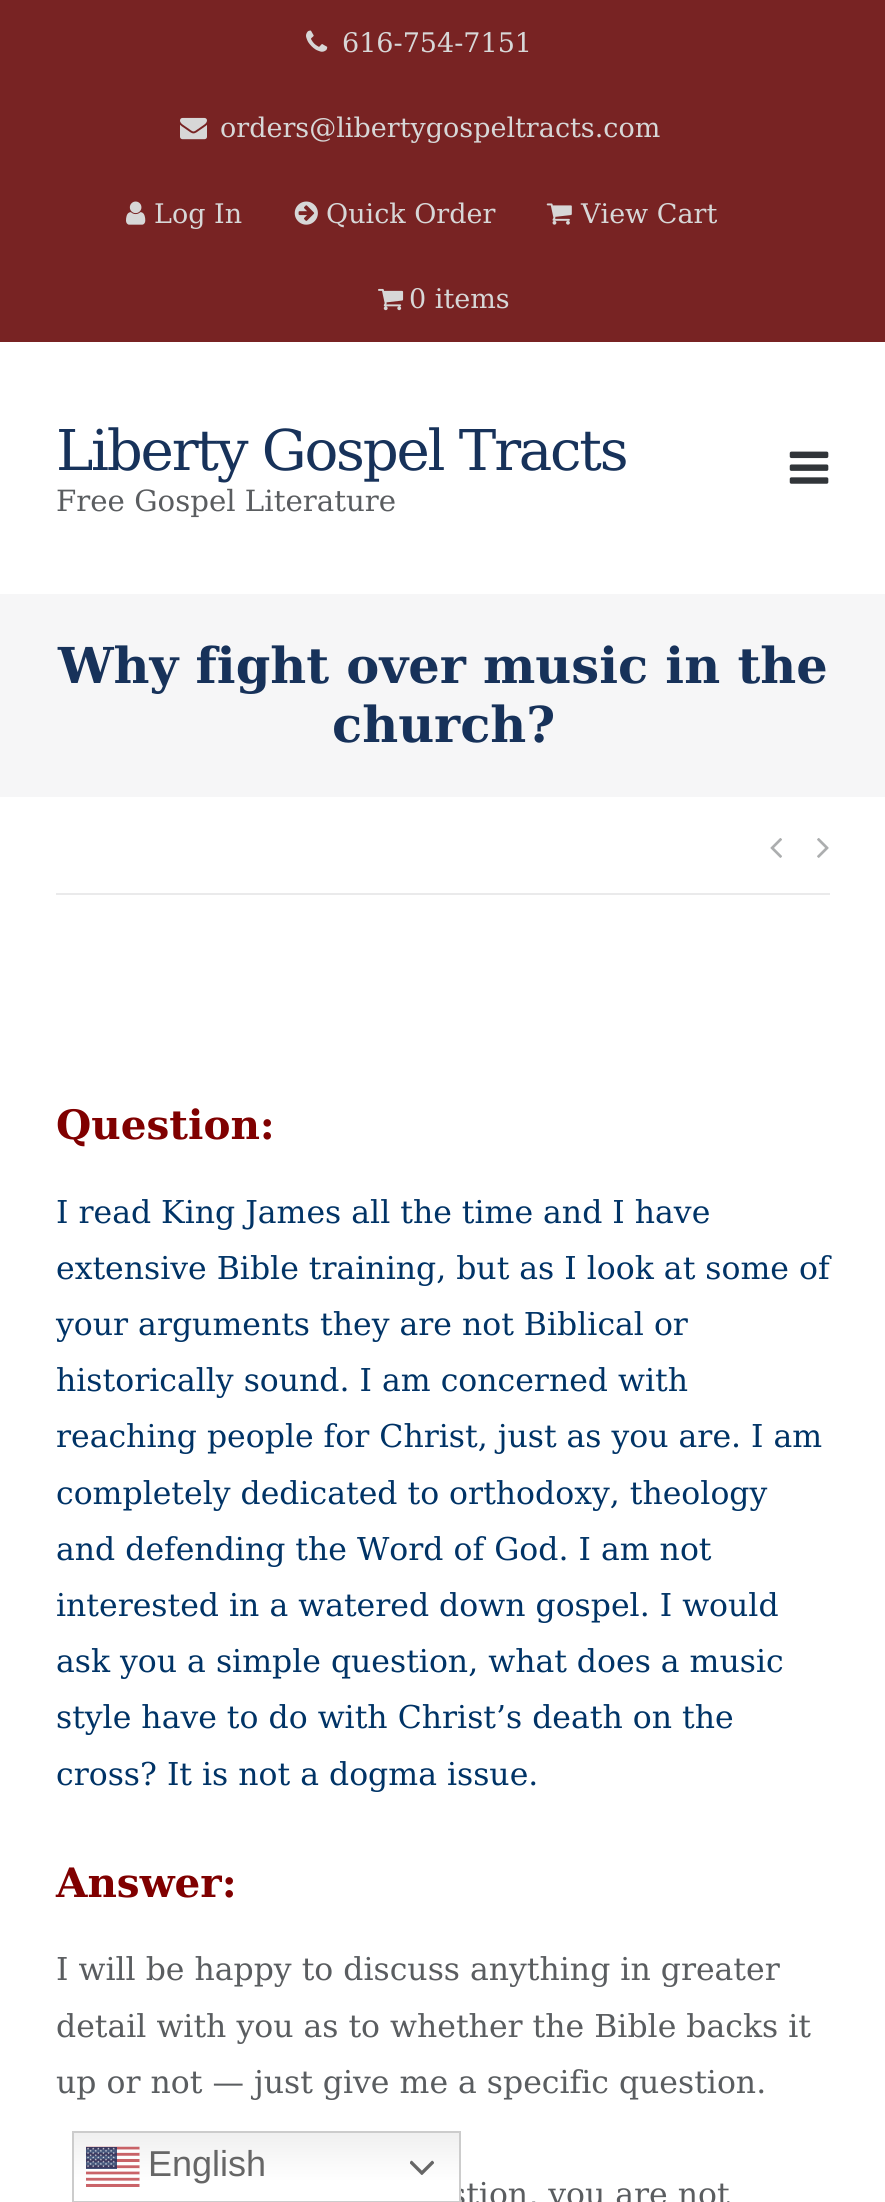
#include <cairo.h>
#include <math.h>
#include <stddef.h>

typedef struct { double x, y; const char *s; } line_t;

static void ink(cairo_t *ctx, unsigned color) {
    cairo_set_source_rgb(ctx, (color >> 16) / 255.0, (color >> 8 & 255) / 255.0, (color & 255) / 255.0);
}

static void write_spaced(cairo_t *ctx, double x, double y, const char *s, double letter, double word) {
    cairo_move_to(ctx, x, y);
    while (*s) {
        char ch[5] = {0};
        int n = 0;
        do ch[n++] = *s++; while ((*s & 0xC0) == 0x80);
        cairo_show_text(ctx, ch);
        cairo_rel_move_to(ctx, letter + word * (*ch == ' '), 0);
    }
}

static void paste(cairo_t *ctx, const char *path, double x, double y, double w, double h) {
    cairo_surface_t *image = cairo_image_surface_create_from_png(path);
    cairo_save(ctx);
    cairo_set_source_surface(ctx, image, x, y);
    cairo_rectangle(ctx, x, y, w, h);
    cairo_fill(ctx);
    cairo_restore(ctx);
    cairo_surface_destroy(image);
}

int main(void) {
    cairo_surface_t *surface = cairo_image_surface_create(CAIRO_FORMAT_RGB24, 885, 2202);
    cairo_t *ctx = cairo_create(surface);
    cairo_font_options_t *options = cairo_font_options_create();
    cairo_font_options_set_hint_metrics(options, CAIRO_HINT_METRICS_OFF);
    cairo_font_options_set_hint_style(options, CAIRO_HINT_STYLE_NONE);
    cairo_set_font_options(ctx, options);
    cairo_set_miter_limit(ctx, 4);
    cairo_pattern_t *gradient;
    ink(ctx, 0xFFFFFF);
    cairo_paint(ctx);
    ink(ctx, 0x782323);
    cairo_rectangle(ctx, 0, 0, 885, 342);
    cairo_fill(ctx);
    paste(ctx, "media/1.png", 306, 30, 22, 22);
    cairo_select_font_face(ctx, "DejaVu Serif", CAIRO_FONT_SLANT_NORMAL, CAIRO_FONT_WEIGHT_NORMAL);
    cairo_set_font_size(ctx, 27);
    ink(ctx, 0xD7D7D7);
    cairo_move_to(ctx, 342, 52);
    cairo_show_text(ctx, "616-754-7151");
    paste(ctx, "media/2.png", 180, 117, 27, 23);
    cairo_move_to(ctx, 220, 137);
    cairo_show_text(ctx, "orders@libertygospeltracts.com");
    paste(ctx, "media/3.png", 126, 201, 20, 24);
    cairo_move_to(ctx, 154, 223);
    cairo_show_text(ctx, "Log In");
    paste(ctx, "media/4.png", 294, 201, 24, 24);
    cairo_move_to(ctx, 326, 223);
    cairo_show_text(ctx, "Quick Order");
    paste(ctx, "media/5.png", 546, 203, 26, 22);
    cairo_move_to(ctx, 581, 223);
    cairo_show_text(ctx, "View Cart");
    paste(ctx, "media/6.png", 378, 288, 26, 23);
    cairo_move_to(ctx, 409, 308);
    cairo_show_text(ctx, "0 items");
    cairo_set_font_size(ctx, 56.25);
    ink(ctx, 0x17325A);
    write_spaced(ctx, 56, 470, "Liberty Gospel Tracts", -2.25, 0);
    cairo_set_font_size(ctx, 29.25);
    ink(ctx, 0x5A5D60);
    cairo_move_to(ctx, 56, 511);
    cairo_show_text(ctx, "Free Gospel Literature");
    paste(ctx, "media/7.png", 789, 451, 40, 33);
    ink(ctx, 0xF6F6F7);
    cairo_rectangle(ctx, 0, 594, 885, 203);
    cairo_fill(ctx);
    cairo_select_font_face(ctx, "DejaVu Serif", CAIRO_FONT_SLANT_NORMAL, CAIRO_FONT_WEIGHT_BOLD);
    cairo_set_font_size(ctx, 49.5);
    ink(ctx, 0x17325A);
    cairo_move_to(ctx, 58, 683);
    cairo_show_text(ctx, "Why fight over music in the");
    cairo_move_to(ctx, 332, 742);
    cairo_show_text(ctx, "church?");
    ink(ctx, 0xEAEAEB);
    cairo_rectangle(ctx, 56, 893, 774, 2);
    cairo_fill(ctx);
    paste(ctx, "media/8.png", 770, 838, 12, 20);
    paste(ctx, "media/9.png", 817, 838, 12, 20);
    cairo_set_font_size(ctx, 40.5);
    ink(ctx, 0x800000);
    cairo_move_to(ctx, 56, 1139);
    cairo_show_text(ctx, "Question:");
    cairo_select_font_face(ctx, "DejaVu Serif", CAIRO_FONT_SLANT_NORMAL, CAIRO_FONT_WEIGHT_NORMAL);
    cairo_set_font_size(ctx, 31.5);
    ink(ctx, 0x003366);
    {
        static const line_t items[] = {
            {56, 1223, "I read King James all the time and I have"},
            {56, 1279, "extensive Bible training, but as I look at some of"},
            {56, 1335, "your arguments they are not Biblical or"},
            {56, 1391, "historically sound. I am concerned with"},
            {56, 1447, "reaching people for Christ, just as you are. I am"},
            {56, 1504, "completely dedicated to orthodoxy, theology"},
            {56, 1560, "and defending the Word of God. I am not"},
            {56, 1616, "interested in a watered down gospel. I would"},
            {56, 1672, "ask you a simple question, what does a music"},
            {56, 1728, "style have to do with Christ’s death on the"},
            {56, 1785, "cross? It is not a dogma issue."},
        };
        for (size_t i = 0; i < sizeof items / sizeof *items; i++) {
            cairo_move_to(ctx, items[i].x, items[i].y);
            cairo_show_text(ctx, items[i].s);
        }
    }
    cairo_select_font_face(ctx, "DejaVu Serif", CAIRO_FONT_SLANT_NORMAL, CAIRO_FONT_WEIGHT_BOLD);
    cairo_set_font_size(ctx, 40.5);
    ink(ctx, 0x800000);
    cairo_move_to(ctx, 56, 1897);
    cairo_show_text(ctx, "Answer:");
    cairo_select_font_face(ctx, "DejaVu Serif", CAIRO_FONT_SLANT_NORMAL, CAIRO_FONT_WEIGHT_NORMAL);
    cairo_set_font_size(ctx, 31.5);
    ink(ctx, 0x5A5D60);
    {
        static const line_t items[] = {
            {56, 1980, "I will be happy to discuss anything in greater"},
            {56, 2037, "detail with you as to whether the Bible backs it"},
            {56, 2093, "up or not — just give me a specific question."},
            {450, 2205, "stion, you are not"},
        };
        for (size_t i = 0; i < sizeof items / sizeof *items; i++) {
            cairo_move_to(ctx, items[i].x, items[i].y);
            cairo_show_text(ctx, items[i].s);
        }
    }
    gradient = cairo_pattern_create_linear(267, 2131, 267, 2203);
    cairo_pattern_add_color_stop_rgba(gradient, 0, 0.937, 0.937, 0.937, 1);
    cairo_pattern_add_color_stop_rgba(gradient, 0.7, 1, 1, 1, 1);
    cairo_set_source(ctx, gradient);
    cairo_pattern_destroy(gradient);
    cairo_rectangle(ctx, 74, 2133, 385, 68);
    cairo_fill(ctx);
    cairo_rectangle(ctx, 73, 2132, 387, 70);
    ink(ctx, 0xCCCCCC);
    cairo_stroke(ctx);
    paste(ctx, "media/10.png", 86, 2146, 54, 41);
    cairo_select_font_face(ctx, "Liberation Sans", CAIRO_FONT_SLANT_NORMAL, CAIRO_FONT_WEIGHT_NORMAL);
    cairo_set_font_size(ctx, 36);
    ink(ctx, 0x666666);
    cairo_move_to(ctx, 148, 2176);
    cairo_show_text(ctx, "English");
    paste(ctx, "media/11.png", 410, 2160, 24, 15);
    cairo_surface_write_to_png(surface, "image.png");
    cairo_font_options_destroy(options);
    cairo_destroy(ctx);
    cairo_surface_destroy(surface);
    return 0;
}
